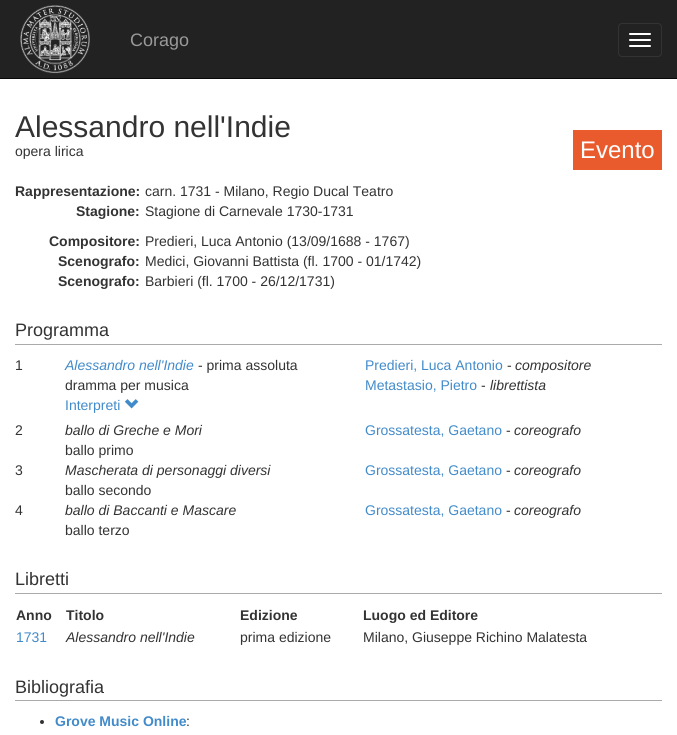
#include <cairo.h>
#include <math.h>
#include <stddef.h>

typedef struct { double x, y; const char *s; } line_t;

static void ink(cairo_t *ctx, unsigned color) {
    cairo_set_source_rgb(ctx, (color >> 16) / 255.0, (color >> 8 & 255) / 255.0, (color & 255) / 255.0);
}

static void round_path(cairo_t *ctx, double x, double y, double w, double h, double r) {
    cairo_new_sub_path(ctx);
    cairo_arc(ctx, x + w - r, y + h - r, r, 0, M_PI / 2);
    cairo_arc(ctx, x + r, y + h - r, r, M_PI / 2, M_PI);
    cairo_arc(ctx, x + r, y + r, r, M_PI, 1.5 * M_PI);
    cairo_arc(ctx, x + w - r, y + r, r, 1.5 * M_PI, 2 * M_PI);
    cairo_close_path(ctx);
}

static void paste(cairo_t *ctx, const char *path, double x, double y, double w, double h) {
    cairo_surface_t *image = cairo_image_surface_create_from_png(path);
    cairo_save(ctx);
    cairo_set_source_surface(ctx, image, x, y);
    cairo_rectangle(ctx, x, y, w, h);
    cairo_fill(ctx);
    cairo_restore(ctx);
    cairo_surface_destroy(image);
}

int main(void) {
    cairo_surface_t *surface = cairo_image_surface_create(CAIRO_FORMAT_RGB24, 677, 735);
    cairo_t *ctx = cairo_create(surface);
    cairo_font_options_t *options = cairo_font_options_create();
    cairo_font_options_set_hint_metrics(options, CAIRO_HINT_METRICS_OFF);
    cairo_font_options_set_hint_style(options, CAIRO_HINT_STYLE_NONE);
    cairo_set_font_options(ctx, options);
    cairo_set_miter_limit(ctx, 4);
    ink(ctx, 0xFFFFFF);
    cairo_paint(ctx);
    ink(ctx, 0x222222);
    cairo_rectangle(ctx, 0, 0, 677, 78);
    cairo_fill(ctx);
    ink(ctx, 0x080808);
    cairo_rectangle(ctx, 0, 78, 677, 1);
    cairo_fill(ctx);
    paste(ctx, "media/1.png", 20, 5, 70, 69);
    cairo_select_font_face(ctx, "Liberation Sans", CAIRO_FONT_SLANT_NORMAL, CAIRO_FONT_WEIGHT_NORMAL);
    cairo_set_font_size(ctx, 18);
    ink(ctx, 0x999999);
    cairo_move_to(ctx, 130, 46);
    cairo_show_text(ctx, "Corago");
    round_path(ctx, 618.5, 23.5, 43, 33, 3.5);
    ink(ctx, 0x333333);
    cairo_set_line_width(ctx, 1);
    cairo_stroke(ctx);
    ink(ctx, 0xFFFFFF);
    round_path(ctx, 629, 33, 22, 2, 1);
    cairo_fill(ctx);
    round_path(ctx, 629, 39, 22, 2, 1);
    cairo_fill(ctx);
    round_path(ctx, 629, 45, 22, 2, 1);
    cairo_fill(ctx);
    cairo_set_font_size(ctx, 30);
    ink(ctx, 0x333333);
    cairo_move_to(ctx, 15, 137);
    cairo_show_text(ctx, "Alessandro nell'Indie");
    cairo_set_font_size(ctx, 14);
    cairo_move_to(ctx, 15, 156);
    cairo_show_text(ctx, "opera lirica");
    ink(ctx, 0xE95B2D);
    cairo_rectangle(ctx, 573, 130, 89, 40);
    cairo_fill(ctx);
    cairo_set_font_size(ctx, 24);
    ink(ctx, 0xFFFFFF);
    cairo_move_to(ctx, 580, 158);
    cairo_show_text(ctx, "Evento");
    cairo_select_font_face(ctx, "Liberation Sans", CAIRO_FONT_SLANT_NORMAL, CAIRO_FONT_WEIGHT_BOLD);
    cairo_set_font_size(ctx, 14);
    ink(ctx, 0x333333);
    cairo_move_to(ctx, 15, 196);
    cairo_show_text(ctx, "Rappresentazione:");
    cairo_select_font_face(ctx, "Liberation Sans", CAIRO_FONT_SLANT_NORMAL, CAIRO_FONT_WEIGHT_NORMAL);
    cairo_move_to(ctx, 145, 196);
    cairo_show_text(ctx, "carn. 1731 - Milano, Regio Ducal Teatro");
    cairo_select_font_face(ctx, "Liberation Sans", CAIRO_FONT_SLANT_NORMAL, CAIRO_FONT_WEIGHT_BOLD);
    cairo_move_to(ctx, 76, 216);
    cairo_show_text(ctx, "Stagione:");
    cairo_select_font_face(ctx, "Liberation Sans", CAIRO_FONT_SLANT_NORMAL, CAIRO_FONT_WEIGHT_NORMAL);
    cairo_move_to(ctx, 145, 216);
    cairo_show_text(ctx, "Stagione di Carnevale 1730-1731");
    cairo_select_font_face(ctx, "Liberation Sans", CAIRO_FONT_SLANT_NORMAL, CAIRO_FONT_WEIGHT_BOLD);
    cairo_move_to(ctx, 49, 246);
    cairo_show_text(ctx, "Compositore:");
    cairo_select_font_face(ctx, "Liberation Sans", CAIRO_FONT_SLANT_NORMAL, CAIRO_FONT_WEIGHT_NORMAL);
    cairo_move_to(ctx, 145, 246);
    cairo_show_text(ctx, "Predieri, Luca Antonio (13/09/1688 - 1767)");
    cairo_select_font_face(ctx, "Liberation Sans", CAIRO_FONT_SLANT_NORMAL, CAIRO_FONT_WEIGHT_BOLD);
    cairo_move_to(ctx, 58, 266);
    cairo_show_text(ctx, "Scenografo:");
    cairo_select_font_face(ctx, "Liberation Sans", CAIRO_FONT_SLANT_NORMAL, CAIRO_FONT_WEIGHT_NORMAL);
    cairo_move_to(ctx, 145, 266);
    cairo_show_text(ctx, "Medici, Giovanni Battista (fl. 1700 - 01/1742)");
    cairo_select_font_face(ctx, "Liberation Sans", CAIRO_FONT_SLANT_NORMAL, CAIRO_FONT_WEIGHT_BOLD);
    cairo_move_to(ctx, 58, 286);
    cairo_show_text(ctx, "Scenografo:");
    cairo_select_font_face(ctx, "Liberation Sans", CAIRO_FONT_SLANT_NORMAL, CAIRO_FONT_WEIGHT_NORMAL);
    cairo_move_to(ctx, 145, 286);
    cairo_show_text(ctx, "Barbieri (fl. 1700 - 26/12/1731)");
    ink(ctx, 0xAAAAAA);
    cairo_rectangle(ctx, 15, 344, 647, 1);
    cairo_fill(ctx);
    cairo_set_font_size(ctx, 18);
    ink(ctx, 0x333333);
    cairo_move_to(ctx, 15, 336);
    cairo_show_text(ctx, "Programma");
    cairo_set_font_size(ctx, 14);
    cairo_move_to(ctx, 15, 370);
    cairo_show_text(ctx, "1");
    cairo_select_font_face(ctx, "Liberation Sans", CAIRO_FONT_SLANT_ITALIC, CAIRO_FONT_WEIGHT_NORMAL);
    ink(ctx, 0x428BCA);
    cairo_move_to(ctx, 65, 370);
    cairo_show_text(ctx, "Alessandro nell'Indie");
    cairo_select_font_face(ctx, "Liberation Sans", CAIRO_FONT_SLANT_NORMAL, CAIRO_FONT_WEIGHT_NORMAL);
    ink(ctx, 0x333333);
    cairo_move_to(ctx, 198, 370);
    cairo_show_text(ctx, "- prima assoluta");
    cairo_move_to(ctx, 65, 390);
    cairo_show_text(ctx, "dramma per musica");
    ink(ctx, 0x428BCA);
    cairo_move_to(ctx, 365, 370);
    cairo_show_text(ctx, "Predieri, Luca Antonio");
    ink(ctx, 0x333333);
    cairo_move_to(ctx, 507, 370);
    cairo_show_text(ctx, "-");
    cairo_select_font_face(ctx, "Liberation Sans", CAIRO_FONT_SLANT_ITALIC, CAIRO_FONT_WEIGHT_NORMAL);
    cairo_move_to(ctx, 515, 370);
    cairo_show_text(ctx, "compositore");
    cairo_select_font_face(ctx, "Liberation Sans", CAIRO_FONT_SLANT_NORMAL, CAIRO_FONT_WEIGHT_NORMAL);
    ink(ctx, 0x428BCA);
    cairo_move_to(ctx, 365, 390);
    cairo_show_text(ctx, "Metastasio, Pietro");
    ink(ctx, 0x333333);
    cairo_move_to(ctx, 481, 390);
    cairo_show_text(ctx, "-");
    cairo_select_font_face(ctx, "Liberation Sans", CAIRO_FONT_SLANT_ITALIC, CAIRO_FONT_WEIGHT_NORMAL);
    cairo_move_to(ctx, 490, 390);
    cairo_show_text(ctx, "librettista");
    cairo_select_font_face(ctx, "Liberation Sans", CAIRO_FONT_SLANT_NORMAL, CAIRO_FONT_WEIGHT_NORMAL);
    ink(ctx, 0x428BCA);
    cairo_move_to(ctx, 65, 410);
    cairo_show_text(ctx, "Interpreti");
    paste(ctx, "media/2.png", 124, 399, 15, 10);
    ink(ctx, 0x333333);
    cairo_move_to(ctx, 15, 435);
    cairo_show_text(ctx, "2");
    cairo_select_font_face(ctx, "Liberation Sans", CAIRO_FONT_SLANT_ITALIC, CAIRO_FONT_WEIGHT_NORMAL);
    cairo_move_to(ctx, 65, 435);
    cairo_show_text(ctx, "ballo di Greche e Mori");
    cairo_select_font_face(ctx, "Liberation Sans", CAIRO_FONT_SLANT_NORMAL, CAIRO_FONT_WEIGHT_NORMAL);
    cairo_move_to(ctx, 65, 455);
    cairo_show_text(ctx, "ballo primo");
    ink(ctx, 0x428BCA);
    cairo_move_to(ctx, 365, 435);
    cairo_show_text(ctx, "Grossatesta, Gaetano");
    ink(ctx, 0x333333);
    cairo_move_to(ctx, 506, 435);
    cairo_show_text(ctx, "-");
    cairo_select_font_face(ctx, "Liberation Sans", CAIRO_FONT_SLANT_ITALIC, CAIRO_FONT_WEIGHT_NORMAL);
    cairo_move_to(ctx, 514, 435);
    cairo_show_text(ctx, "coreografo");
    cairo_select_font_face(ctx, "Liberation Sans", CAIRO_FONT_SLANT_NORMAL, CAIRO_FONT_WEIGHT_NORMAL);
    cairo_move_to(ctx, 15, 475);
    cairo_show_text(ctx, "3");
    cairo_select_font_face(ctx, "Liberation Sans", CAIRO_FONT_SLANT_ITALIC, CAIRO_FONT_WEIGHT_NORMAL);
    cairo_move_to(ctx, 65, 475);
    cairo_show_text(ctx, "Mascherata di personaggi diversi");
    cairo_select_font_face(ctx, "Liberation Sans", CAIRO_FONT_SLANT_NORMAL, CAIRO_FONT_WEIGHT_NORMAL);
    cairo_move_to(ctx, 65, 495);
    cairo_show_text(ctx, "ballo secondo");
    ink(ctx, 0x428BCA);
    cairo_move_to(ctx, 365, 475);
    cairo_show_text(ctx, "Grossatesta, Gaetano");
    ink(ctx, 0x333333);
    cairo_move_to(ctx, 506, 475);
    cairo_show_text(ctx, "-");
    cairo_select_font_face(ctx, "Liberation Sans", CAIRO_FONT_SLANT_ITALIC, CAIRO_FONT_WEIGHT_NORMAL);
    cairo_move_to(ctx, 514, 475);
    cairo_show_text(ctx, "coreografo");
    cairo_select_font_face(ctx, "Liberation Sans", CAIRO_FONT_SLANT_NORMAL, CAIRO_FONT_WEIGHT_NORMAL);
    cairo_move_to(ctx, 15, 515);
    cairo_show_text(ctx, "4");
    cairo_select_font_face(ctx, "Liberation Sans", CAIRO_FONT_SLANT_ITALIC, CAIRO_FONT_WEIGHT_NORMAL);
    cairo_move_to(ctx, 65, 515);
    cairo_show_text(ctx, "ballo di Baccanti e Mascare");
    cairo_select_font_face(ctx, "Liberation Sans", CAIRO_FONT_SLANT_NORMAL, CAIRO_FONT_WEIGHT_NORMAL);
    cairo_move_to(ctx, 65, 535);
    cairo_show_text(ctx, "ballo terzo");
    ink(ctx, 0x428BCA);
    cairo_move_to(ctx, 365, 515);
    cairo_show_text(ctx, "Grossatesta, Gaetano");
    ink(ctx, 0x333333);
    cairo_move_to(ctx, 506, 515);
    cairo_show_text(ctx, "-");
    cairo_select_font_face(ctx, "Liberation Sans", CAIRO_FONT_SLANT_ITALIC, CAIRO_FONT_WEIGHT_NORMAL);
    cairo_move_to(ctx, 514, 515);
    cairo_show_text(ctx, "coreografo");
    ink(ctx, 0xAAAAAA);
    cairo_rectangle(ctx, 15, 593, 647, 1);
    cairo_fill(ctx);
    cairo_select_font_face(ctx, "Liberation Sans", CAIRO_FONT_SLANT_NORMAL, CAIRO_FONT_WEIGHT_NORMAL);
    cairo_set_font_size(ctx, 18);
    ink(ctx, 0x333333);
    cairo_move_to(ctx, 15, 585);
    cairo_show_text(ctx, "Libretti");
    cairo_select_font_face(ctx, "Liberation Sans", CAIRO_FONT_SLANT_NORMAL, CAIRO_FONT_WEIGHT_BOLD);
    cairo_set_font_size(ctx, 14);
    {
        static const line_t items[] = {
            {16, 620, "Anno"},
            {66, 620, "Titolo"},
            {240, 620, "Edizione"},
            {363, 620, "Luogo ed Editore"},
        };
        for (size_t i = 0; i < sizeof items / sizeof *items; i++) {
            cairo_move_to(ctx, items[i].x, items[i].y);
            cairo_show_text(ctx, items[i].s);
        }
    }
    cairo_select_font_face(ctx, "Liberation Sans", CAIRO_FONT_SLANT_NORMAL, CAIRO_FONT_WEIGHT_NORMAL);
    ink(ctx, 0x428BCA);
    cairo_move_to(ctx, 16, 642);
    cairo_show_text(ctx, "1731");
    cairo_select_font_face(ctx, "Liberation Sans", CAIRO_FONT_SLANT_ITALIC, CAIRO_FONT_WEIGHT_NORMAL);
    ink(ctx, 0x333333);
    cairo_move_to(ctx, 66, 642);
    cairo_show_text(ctx, "Alessandro nell'Indie");
    cairo_select_font_face(ctx, "Liberation Sans", CAIRO_FONT_SLANT_NORMAL, CAIRO_FONT_WEIGHT_NORMAL);
    cairo_move_to(ctx, 240, 642);
    cairo_show_text(ctx, "prima edizione");
    cairo_move_to(ctx, 363, 642);
    cairo_show_text(ctx, "Milano, Giuseppe Richino Malatesta");
    ink(ctx, 0xAAAAAA);
    cairo_rectangle(ctx, 15, 700, 647, 1);
    cairo_fill(ctx);
    cairo_set_font_size(ctx, 18);
    ink(ctx, 0x333333);
    cairo_move_to(ctx, 15, 693);
    cairo_show_text(ctx, "Bibliografia");
    cairo_new_path(ctx);
    cairo_arc(ctx, 42, 722, 2, 0, 2 * M_PI);
    cairo_fill(ctx);
    cairo_select_font_face(ctx, "Liberation Sans", CAIRO_FONT_SLANT_NORMAL, CAIRO_FONT_WEIGHT_BOLD);
    cairo_set_font_size(ctx, 14);
    ink(ctx, 0x428BCA);
    cairo_move_to(ctx, 55, 726);
    cairo_show_text(ctx, "Grove Music Online");
    cairo_select_font_face(ctx, "Liberation Sans", CAIRO_FONT_SLANT_NORMAL, CAIRO_FONT_WEIGHT_NORMAL);
    ink(ctx, 0x333333);
    cairo_move_to(ctx, 186, 726);
    cairo_show_text(ctx, ":");
    cairo_surface_write_to_png(surface, "image.png");
    cairo_font_options_destroy(options);
    cairo_destroy(ctx);
    cairo_surface_destroy(surface);
    return 0;
}
